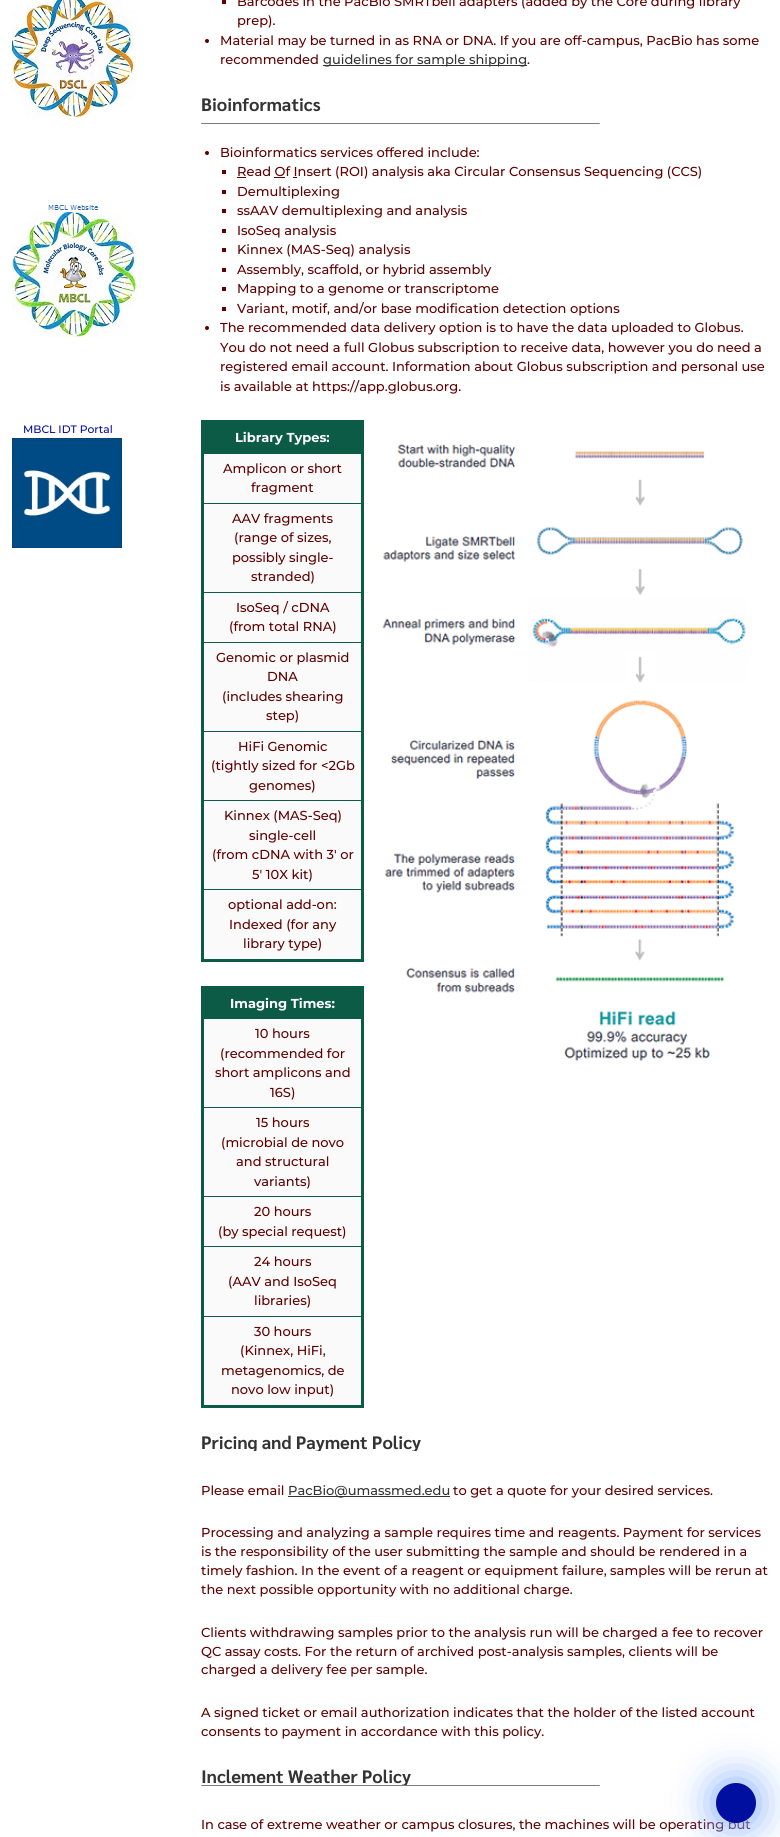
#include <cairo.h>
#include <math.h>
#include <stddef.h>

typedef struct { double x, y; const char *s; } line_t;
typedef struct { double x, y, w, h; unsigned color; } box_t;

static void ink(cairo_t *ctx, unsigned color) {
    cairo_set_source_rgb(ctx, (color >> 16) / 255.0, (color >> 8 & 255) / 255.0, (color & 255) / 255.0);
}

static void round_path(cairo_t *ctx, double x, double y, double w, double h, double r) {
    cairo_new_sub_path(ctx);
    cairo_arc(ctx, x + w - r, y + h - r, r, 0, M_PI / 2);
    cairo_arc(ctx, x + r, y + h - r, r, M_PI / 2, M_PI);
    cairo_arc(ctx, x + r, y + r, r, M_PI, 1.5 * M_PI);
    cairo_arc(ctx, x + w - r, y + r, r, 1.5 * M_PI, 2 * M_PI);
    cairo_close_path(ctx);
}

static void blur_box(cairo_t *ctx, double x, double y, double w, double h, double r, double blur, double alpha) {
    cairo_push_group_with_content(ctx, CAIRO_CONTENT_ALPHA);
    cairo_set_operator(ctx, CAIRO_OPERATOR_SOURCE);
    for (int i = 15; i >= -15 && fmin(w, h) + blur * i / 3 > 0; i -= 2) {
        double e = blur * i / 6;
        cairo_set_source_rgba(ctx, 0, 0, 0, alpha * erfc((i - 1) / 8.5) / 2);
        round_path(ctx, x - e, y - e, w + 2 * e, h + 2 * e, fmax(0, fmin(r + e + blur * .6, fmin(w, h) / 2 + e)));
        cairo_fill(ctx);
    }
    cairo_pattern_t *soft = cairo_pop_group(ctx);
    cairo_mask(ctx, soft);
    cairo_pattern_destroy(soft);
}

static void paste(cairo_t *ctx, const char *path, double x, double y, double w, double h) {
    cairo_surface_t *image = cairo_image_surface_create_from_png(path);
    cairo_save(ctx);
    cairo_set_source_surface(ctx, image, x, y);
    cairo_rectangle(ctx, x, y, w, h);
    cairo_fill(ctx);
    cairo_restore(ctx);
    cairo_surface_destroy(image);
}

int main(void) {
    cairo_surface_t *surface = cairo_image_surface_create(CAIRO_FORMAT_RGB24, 780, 1837);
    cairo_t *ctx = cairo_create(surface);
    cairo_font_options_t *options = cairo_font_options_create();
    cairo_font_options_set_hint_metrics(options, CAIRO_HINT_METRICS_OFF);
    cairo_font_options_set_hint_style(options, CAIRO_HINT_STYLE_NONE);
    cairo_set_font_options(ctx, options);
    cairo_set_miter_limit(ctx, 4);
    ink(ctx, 0xFFFFFF);
    cairo_paint(ctx);
    paste(ctx, "media/1.png", 12, 0, 124, 117);
    paste(ctx, "media/2.png", 12, 205, 125, 132);
    cairo_select_font_face(ctx, "Montserrat Medium", CAIRO_FONT_SLANT_NORMAL, CAIRO_FONT_WEIGHT_NORMAL);
    cairo_set_font_size(ctx, 10.75);
    ink(ctx, 0x000F9F);
    cairo_move_to(ctx, 23, 433);
    cairo_show_text(ctx, "MBCL IDT Portal");
    paste(ctx, "media/3.png", 12, 438, 110, 110);
    ink(ctx, 0x600000);
    cairo_rectangle(ctx, 222, 0, 4, 4);
    cairo_fill(ctx);
    cairo_set_font_size(ctx, 13);
    cairo_move_to(ctx, 237, 6);
    cairo_show_text(ctx, "Barcodes in the PacBio SMRTbell adapters (added by the Core during library");
    cairo_move_to(ctx, 237, 25);
    cairo_show_text(ctx, "prep).");
    cairo_new_path(ctx);
    cairo_arc(ctx, 207, 41, 2, 0, 2 * M_PI);
    cairo_fill(ctx);
    cairo_move_to(ctx, 220, 45);
    cairo_show_text(ctx, "Material may be turned in as RNA or DNA. If you are off-campus, PacBio has some");
    cairo_move_to(ctx, 220, 64);
    cairo_show_text(ctx, "recommended");
    ink(ctx, 0x333333);
    cairo_rectangle(ctx, 323, 65, 204, 1);
    cairo_fill(ctx);
    cairo_move_to(ctx, 323, 64);
    cairo_show_text(ctx, "guidelines for sample shipping");
    ink(ctx, 0x600000);
    cairo_move_to(ctx, 527, 64);
    cairo_show_text(ctx, ".");
    cairo_select_font_face(ctx, "Sarabun", CAIRO_FONT_SLANT_NORMAL, CAIRO_FONT_WEIGHT_BOLD);
    cairo_set_font_size(ctx, 18);
    ink(ctx, 0x333333);
    cairo_move_to(ctx, 201, 111);
    cairo_show_text(ctx, "Bioinformatics");
    paste(ctx, "media/4.png", 201, 123, 399, 1);
    ink(ctx, 0x600000);
    cairo_arc(ctx, 207, 153, 2, 0, 2 * M_PI);
    cairo_fill(ctx);
    cairo_select_font_face(ctx, "Montserrat Medium", CAIRO_FONT_SLANT_NORMAL, CAIRO_FONT_WEIGHT_NORMAL);
    cairo_set_font_size(ctx, 13);
    cairo_move_to(ctx, 220, 157);
    cairo_show_text(ctx, "Bioinformatics services offered include:");
    cairo_rectangle(ctx, 222, 170, 4, 4);
    cairo_fill(ctx);
    cairo_rectangle(ctx, 237, 177, 9, 1);
    cairo_fill(ctx);
    cairo_move_to(ctx, 237, 176);
    cairo_show_text(ctx, "Read Of Insert (ROI) analysis aka Circular Consensus Sequencing (CCS)");
    {
        static const box_t items[] = {
            {274, 177, 11, 1, 0x600000},
            {293, 177, 4, 1, 0x600000},
            {222, 190, 4, 4, 0x600000},
        };
        for (size_t i = 0; i < sizeof items / sizeof *items; i++) {
            ink(ctx, items[i].color);
            cairo_rectangle(ctx, items[i].x, items[i].y, items[i].w, items[i].h);
            cairo_fill(ctx);
        }
    }
    cairo_move_to(ctx, 237, 196);
    cairo_show_text(ctx, "Demultiplexing");
    cairo_rectangle(ctx, 222, 209, 4, 4);
    cairo_fill(ctx);
    cairo_move_to(ctx, 237, 215);
    cairo_show_text(ctx, "ssAAV demultiplexing and analysis");
    cairo_rectangle(ctx, 222, 229, 4, 4);
    cairo_fill(ctx);
    cairo_move_to(ctx, 237, 235);
    cairo_show_text(ctx, "IsoSeq analysis");
    cairo_rectangle(ctx, 222, 248, 4, 4);
    cairo_fill(ctx);
    cairo_move_to(ctx, 237, 254);
    cairo_show_text(ctx, "Kinnex (MAS-Seq) analysis");
    cairo_rectangle(ctx, 222, 268, 4, 4);
    cairo_fill(ctx);
    cairo_move_to(ctx, 237, 274);
    cairo_show_text(ctx, "Assembly, scaffold, or hybrid assembly");
    cairo_rectangle(ctx, 222, 287, 4, 4);
    cairo_fill(ctx);
    cairo_move_to(ctx, 237, 293);
    cairo_show_text(ctx, "Mapping to a genome or transcriptome");
    cairo_rectangle(ctx, 222, 307, 4, 4);
    cairo_fill(ctx);
    cairo_move_to(ctx, 237, 313);
    cairo_show_text(ctx, "Variant, motif, and/or base modification detection options");
    cairo_new_path(ctx);
    cairo_arc(ctx, 207, 328, 2, 0, 2 * M_PI);
    cairo_fill(ctx);
    {
        static const line_t items[] = {
            {220, 332, "The recommended data delivery option is to have the data uploaded to Globus."},
            {220, 352, "You do not need a full Globus subscription to receive data, however you do need a"},
            {220, 371, "registered email account. Information about Globus subscription and personal use"},
            {220, 391, "is available at https://app.globus.org."},
        };
        for (size_t i = 0; i < sizeof items / sizeof *items; i++) {
            cairo_move_to(ctx, items[i].x, items[i].y);
            cairo_show_text(ctx, items[i].s);
        }
    }
    {
        static const box_t items[] = {
            {201, 420, 163, 3, 0x0B5B46},
            {202, 453, 161, 1, 0x0B5B46},
            {202, 503, 161, 1, 0x0B5B46},
            {202, 592, 161, 1, 0x0B5B46},
            {202, 642, 161, 1, 0x0B5B46},
            {202, 731, 161, 1, 0x0B5B46},
            {202, 800, 161, 1, 0x0B5B46},
            {202, 889, 161, 1, 0x0B5B46},
            {361, 420, 3, 542, 0x0B5B46},
            {201, 959, 163, 3, 0x0B5B46},
            {201, 420, 3, 542, 0x0B5B46},
            {204, 423, 157, 30, 0x0B5B46},
        };
        for (size_t i = 0; i < sizeof items / sizeof *items; i++) {
            ink(ctx, items[i].color);
            cairo_rectangle(ctx, items[i].x, items[i].y, items[i].w, items[i].h);
            cairo_fill(ctx);
        }
    }
    cairo_select_font_face(ctx, "Montserrat", CAIRO_FONT_SLANT_NORMAL, CAIRO_FONT_WEIGHT_BOLD);
    ink(ctx, 0xFFFFFF);
    cairo_move_to(ctx, 235, 442);
    cairo_show_text(ctx, "Library Types:");
    ink(ctx, 0xFAFAFA);
    cairo_rectangle(ctx, 204, 454, 157, 49);
    cairo_fill(ctx);
    cairo_select_font_face(ctx, "Montserrat Medium", CAIRO_FONT_SLANT_NORMAL, CAIRO_FONT_WEIGHT_NORMAL);
    ink(ctx, 0x600000);
    cairo_move_to(ctx, 223, 473);
    cairo_show_text(ctx, "Amplicon or short");
    cairo_move_to(ctx, 251, 492);
    cairo_show_text(ctx, "fragment");
    ink(ctx, 0xFAFAFA);
    cairo_rectangle(ctx, 204, 504, 157, 88);
    cairo_fill(ctx);
    ink(ctx, 0x600000);
    {
        static const line_t items[] = {
            {232, 523, "AAV fragments"},
            {234, 542, "(range of sizes,"},
            {232, 562, "possibly single-"},
            {251, 581, "stranded)"},
        };
        for (size_t i = 0; i < sizeof items / sizeof *items; i++) {
            cairo_move_to(ctx, items[i].x, items[i].y);
            cairo_show_text(ctx, items[i].s);
        }
    }
    ink(ctx, 0xFAFAFA);
    cairo_rectangle(ctx, 204, 593, 157, 49);
    cairo_fill(ctx);
    ink(ctx, 0x600000);
    cairo_move_to(ctx, 236, 612);
    cairo_show_text(ctx, "IsoSeq / cDNA");
    cairo_move_to(ctx, 229, 631);
    cairo_show_text(ctx, "(from total RNA)");
    ink(ctx, 0xFAFAFA);
    cairo_rectangle(ctx, 204, 643, 157, 88);
    cairo_fill(ctx);
    ink(ctx, 0x600000);
    {
        static const line_t items[] = {
            {216, 662, "Genomic or plasmid"},
            {267, 681, "DNA"},
            {222, 701, "(includes shearing"},
            {266, 720, "step)"},
        };
        for (size_t i = 0; i < sizeof items / sizeof *items; i++) {
            cairo_move_to(ctx, items[i].x, items[i].y);
            cairo_show_text(ctx, items[i].s);
        }
    }
    ink(ctx, 0xFAFAFA);
    cairo_rectangle(ctx, 204, 732, 157, 68);
    cairo_fill(ctx);
    ink(ctx, 0x600000);
    {
        static const line_t items[] = {
            {238, 751, "HiFi Genomic"},
            {211, 770, "(tightly sized for <2Gb"},
            {249, 790, "genomes)"},
        };
        for (size_t i = 0; i < sizeof items / sizeof *items; i++) {
            cairo_move_to(ctx, items[i].x, items[i].y);
            cairo_show_text(ctx, items[i].s);
        }
    }
    ink(ctx, 0xFAFAFA);
    cairo_rectangle(ctx, 204, 801, 157, 88);
    cairo_fill(ctx);
    ink(ctx, 0x600000);
    {
        static const line_t items[] = {
            {224, 820, "Kinnex (MAS-Seq)"},
            {249, 840, "single-cell"},
            {212, 859, "(from cDNA with 3' or"},
            {252, 879, "5' 10X kit)"},
        };
        for (size_t i = 0; i < sizeof items / sizeof *items; i++) {
            cairo_move_to(ctx, items[i].x, items[i].y);
            cairo_show_text(ctx, items[i].s);
        }
    }
    ink(ctx, 0xFAFAFA);
    cairo_rectangle(ctx, 204, 890, 157, 69);
    cairo_fill(ctx);
    ink(ctx, 0x600000);
    {
        static const line_t items[] = {
            {228, 909, "optional add-on:"},
            {229, 929, "Indexed (for any"},
            {243, 948, "library type)"},
        };
        for (size_t i = 0; i < sizeof items / sizeof *items; i++) {
            cairo_move_to(ctx, items[i].x, items[i].y);
            cairo_show_text(ctx, items[i].s);
        }
    }
    paste(ctx, "media/5.png", 382, 443, 364, 619);
    {
        static const box_t items[] = {
            {201, 986, 163, 3, 0x0B5B46},
            {202, 1107, 161, 1, 0x0B5B46},
            {202, 1196, 161, 1, 0x0B5B46},
            {202, 1246, 161, 1, 0x0B5B46},
            {202, 1316, 161, 1, 0x0B5B46},
            {361, 986, 3, 422, 0x0B5B46},
            {201, 1405, 163, 3, 0x0B5B46},
            {201, 986, 3, 422, 0x0B5B46},
            {204, 989, 157, 30, 0x0B5B46},
        };
        for (size_t i = 0; i < sizeof items / sizeof *items; i++) {
            ink(ctx, items[i].color);
            cairo_rectangle(ctx, items[i].x, items[i].y, items[i].w, items[i].h);
            cairo_fill(ctx);
        }
    }
    cairo_select_font_face(ctx, "Montserrat", CAIRO_FONT_SLANT_NORMAL, CAIRO_FONT_WEIGHT_BOLD);
    ink(ctx, 0xFFFFFF);
    cairo_move_to(ctx, 230, 1008);
    cairo_show_text(ctx, "Imaging Times:");
    ink(ctx, 0xFAFAFA);
    cairo_rectangle(ctx, 204, 1019, 157, 88);
    cairo_fill(ctx);
    cairo_select_font_face(ctx, "Montserrat Medium", CAIRO_FONT_SLANT_NORMAL, CAIRO_FONT_WEIGHT_NORMAL);
    ink(ctx, 0x600000);
    {
        static const line_t items[] = {
            {255, 1038, "10 hours"},
            {220, 1058, "(recommended for"},
            {215, 1077, "short amplicons and"},
            {270, 1097, "16S)"},
        };
        for (size_t i = 0; i < sizeof items / sizeof *items; i++) {
            cairo_move_to(ctx, items[i].x, items[i].y);
            cairo_show_text(ctx, items[i].s);
        }
    }
    ink(ctx, 0xFAFAFA);
    cairo_rectangle(ctx, 204, 1108, 157, 88);
    cairo_fill(ctx);
    ink(ctx, 0x600000);
    {
        static const line_t items[] = {
            {256, 1127, "15 hours"},
            {221, 1147, "(microbial de novo"},
            {236, 1166, "and structural"},
            {254, 1186, "variants)"},
        };
        for (size_t i = 0; i < sizeof items / sizeof *items; i++) {
            cairo_move_to(ctx, items[i].x, items[i].y);
            cairo_show_text(ctx, items[i].s);
        }
    }
    ink(ctx, 0xFAFAFA);
    cairo_rectangle(ctx, 204, 1197, 157, 49);
    cairo_fill(ctx);
    ink(ctx, 0x600000);
    cairo_move_to(ctx, 254, 1216);
    cairo_show_text(ctx, "20 hours");
    cairo_move_to(ctx, 218, 1236);
    cairo_show_text(ctx, "(by special request)");
    ink(ctx, 0xFAFAFA);
    cairo_rectangle(ctx, 204, 1247, 157, 69);
    cairo_fill(ctx);
    ink(ctx, 0x600000);
    {
        static const line_t items[] = {
            {254, 1266, "24 hours"},
            {228, 1286, "(AAV and IsoSeq"},
            {254, 1305, "libraries)"},
        };
        for (size_t i = 0; i < sizeof items / sizeof *items; i++) {
            cairo_move_to(ctx, items[i].x, items[i].y);
            cairo_show_text(ctx, items[i].s);
        }
    }
    ink(ctx, 0xFAFAFA);
    cairo_rectangle(ctx, 204, 1317, 157, 88);
    cairo_fill(ctx);
    ink(ctx, 0x600000);
    {
        static const line_t items[] = {
            {254, 1336, "30 hours"},
            {240, 1355, "(Kinnex, HiFi,"},
            {221, 1375, "metagenomics, de"},
            {231, 1394, "novo low input)"},
        };
        for (size_t i = 0; i < sizeof items / sizeof *items; i++) {
            cairo_move_to(ctx, items[i].x, items[i].y);
            cairo_show_text(ctx, items[i].s);
        }
    }
    cairo_select_font_face(ctx, "Sarabun", CAIRO_FONT_SLANT_NORMAL, CAIRO_FONT_WEIGHT_BOLD);
    cairo_set_font_size(ctx, 18);
    ink(ctx, 0x333333);
    cairo_move_to(ctx, 201, 1449);
    cairo_show_text(ctx, "Pricing and Payment Policy");
    ink(ctx, 0xFFFFFF);
    cairo_rectangle(ctx, 248, 1451, 169, 3);
    cairo_fill(ctx);
    cairo_select_font_face(ctx, "Montserrat Medium", CAIRO_FONT_SLANT_NORMAL, CAIRO_FONT_WEIGHT_NORMAL);
    cairo_set_font_size(ctx, 13);
    ink(ctx, 0x600000);
    cairo_move_to(ctx, 201, 1495);
    cairo_show_text(ctx, "Please email");
    ink(ctx, 0x333333);
    cairo_rectangle(ctx, 288, 1496, 162, 1);
    cairo_fill(ctx);
    cairo_move_to(ctx, 288, 1495);
    cairo_show_text(ctx, "PacBio@umassmed.edu");
    ink(ctx, 0x600000);
    {
        static const line_t items[] = {
            {453, 1495, "to get a quote for your desired services."},
            {201, 1537, "Processing and analyzing a sample requires time and reagents. Payment for services"},
            {201, 1556, "is the responsibility of the user submitting the sample and should be rendered in a"},
            {201, 1575, "timely fashion. In the event of a reagent or equipment failure, samples will be rerun at"},
            {201, 1594, "the next possible opportunity with no additional charge."},
            {201, 1637, "Clients withdrawing samples prior to the analysis run will be charged a fee to recover"},
            {201, 1656, "QC assay costs. For the return of archived post-analysis samples, clients will be"},
            {201, 1674, "charged a delivery fee per sample."},
            {201, 1717, "A signed ticket or email authorization indicates that the holder of the listed account"},
            {201, 1736, "consents to payment in accordance with this policy."},
        };
        for (size_t i = 0; i < sizeof items / sizeof *items; i++) {
            cairo_move_to(ctx, items[i].x, items[i].y);
            cairo_show_text(ctx, items[i].s);
        }
    }
    cairo_select_font_face(ctx, "Sarabun", CAIRO_FONT_SLANT_NORMAL, CAIRO_FONT_WEIGHT_BOLD);
    cairo_set_font_size(ctx, 18);
    ink(ctx, 0x333333);
    cairo_move_to(ctx, 201, 1783);
    cairo_show_text(ctx, "Inclement Weather Policy");
    paste(ctx, "media/6.png", 201, 1785, 399, 2);
    cairo_select_font_face(ctx, "Montserrat Medium", CAIRO_FONT_SLANT_NORMAL, CAIRO_FONT_WEIGHT_NORMAL);
    cairo_set_font_size(ctx, 13);
    ink(ctx, 0x600000);
    cairo_move_to(ctx, 201, 1829);
    cairo_show_text(ctx, "In case of extreme weather or campus closures, the machines will be operating but");
    ink(ctx, 0x84AFFF);
    blur_box(ctx, 713, 1780, 46, 46, 23, 20, 1);
    ink(ctx, 0x000F9F);
    cairo_arc(ctx, 736, 1803, 20, 0, 2 * M_PI);
    cairo_fill(ctx);
    cairo_surface_write_to_png(surface, "image.png");
    cairo_font_options_destroy(options);
    cairo_destroy(ctx);
    cairo_surface_destroy(surface);
    return 0;
}
